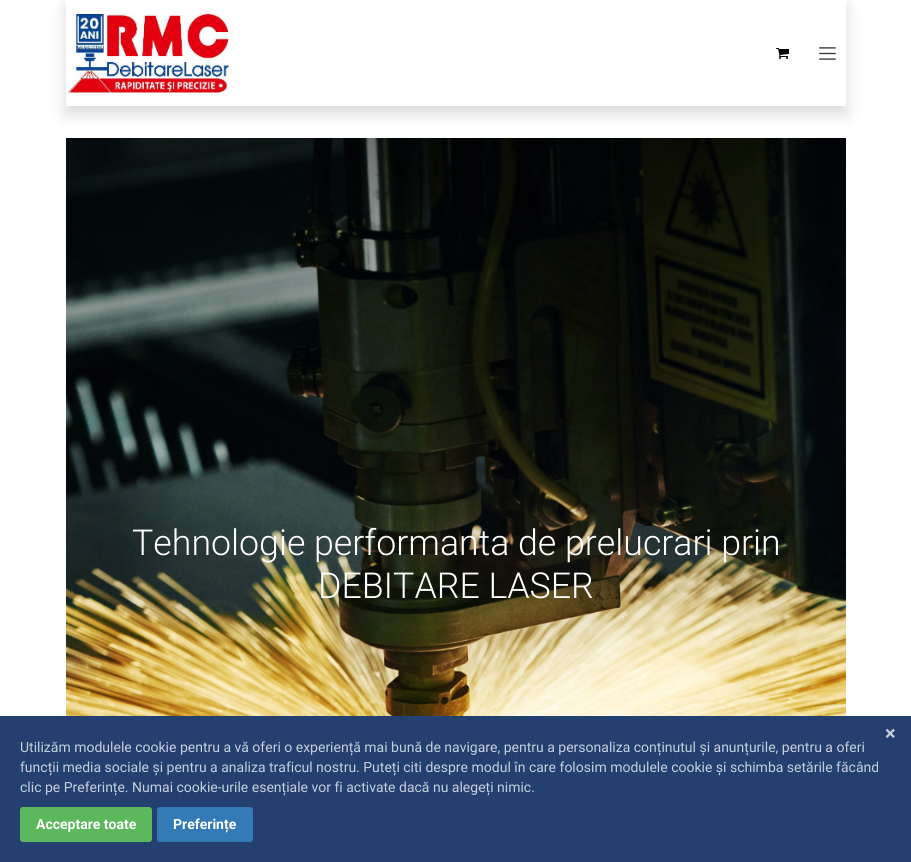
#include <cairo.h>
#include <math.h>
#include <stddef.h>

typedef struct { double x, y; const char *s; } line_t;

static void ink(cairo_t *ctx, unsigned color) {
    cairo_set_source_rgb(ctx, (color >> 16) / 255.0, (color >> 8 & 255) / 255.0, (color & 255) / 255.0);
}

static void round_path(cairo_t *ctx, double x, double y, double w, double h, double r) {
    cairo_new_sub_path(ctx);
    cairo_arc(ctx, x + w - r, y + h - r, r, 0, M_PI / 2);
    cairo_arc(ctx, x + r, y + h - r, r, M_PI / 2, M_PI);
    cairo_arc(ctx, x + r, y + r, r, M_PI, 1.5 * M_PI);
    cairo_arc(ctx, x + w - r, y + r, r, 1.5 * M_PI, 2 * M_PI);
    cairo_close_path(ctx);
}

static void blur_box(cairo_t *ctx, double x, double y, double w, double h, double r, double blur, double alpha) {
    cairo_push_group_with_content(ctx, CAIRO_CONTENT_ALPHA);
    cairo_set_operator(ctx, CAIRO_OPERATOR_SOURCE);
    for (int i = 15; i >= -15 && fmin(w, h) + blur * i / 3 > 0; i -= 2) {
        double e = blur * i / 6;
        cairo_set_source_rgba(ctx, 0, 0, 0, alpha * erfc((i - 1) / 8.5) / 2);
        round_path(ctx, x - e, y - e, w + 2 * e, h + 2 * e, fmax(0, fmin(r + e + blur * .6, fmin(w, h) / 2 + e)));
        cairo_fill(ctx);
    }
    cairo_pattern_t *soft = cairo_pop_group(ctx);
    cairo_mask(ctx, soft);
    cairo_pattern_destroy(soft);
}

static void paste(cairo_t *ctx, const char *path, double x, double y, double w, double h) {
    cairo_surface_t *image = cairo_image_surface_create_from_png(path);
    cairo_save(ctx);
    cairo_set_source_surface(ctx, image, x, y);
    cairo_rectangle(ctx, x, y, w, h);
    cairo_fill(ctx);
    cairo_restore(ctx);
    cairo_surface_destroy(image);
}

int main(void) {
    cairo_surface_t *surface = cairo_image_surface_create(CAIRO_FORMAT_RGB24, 911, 862);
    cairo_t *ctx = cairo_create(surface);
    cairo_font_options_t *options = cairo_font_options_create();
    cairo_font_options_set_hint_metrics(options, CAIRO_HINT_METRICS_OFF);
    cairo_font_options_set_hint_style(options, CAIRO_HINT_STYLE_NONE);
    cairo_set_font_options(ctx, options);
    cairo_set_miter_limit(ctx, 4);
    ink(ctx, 0xFFFFFF);
    cairo_paint(ctx);
    paste(ctx, "media/4.png", 66, 138, 780, 578);
    cairo_save(ctx);
    cairo_set_fill_rule(ctx, CAIRO_FILL_RULE_EVEN_ODD);
    cairo_new_path(ctx);
    cairo_move_to(ctx, 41, 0);
    cairo_line_to(ctx, 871, 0);
    cairo_line_to(ctx, 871, 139);
    cairo_line_to(ctx, 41, 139);
    cairo_close_path(ctx);
    cairo_move_to(ctx, 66, 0);
    cairo_line_to(ctx, 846, 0);
    cairo_line_to(ctx, 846, 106);
    cairo_line_to(ctx, 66, 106);
    cairo_close_path(ctx);
    cairo_clip(ctx);
    ink(ctx, 0x000000);
    blur_box(ctx, 66, 8, 780, 106, 0, 8, 0.15);
    cairo_restore(ctx);
    paste(ctx, "media/1.png", 66, 8, 165, 90);
    paste(ctx, "media/2.png", 776, 48, 13, 11);
    paste(ctx, "media/3.png", 819, 47, 17, 13);
    cairo_select_font_face(ctx, "Roboto Light", CAIRO_FONT_SLANT_NORMAL, CAIRO_FONT_WEIGHT_NORMAL);
    cairo_set_font_size(ctx, 35.7);
    ink(ctx, 0xFFFFFF);
    cairo_move_to(ctx, 132, 555);
    cairo_show_text(ctx, "Tehnologie performanta de prelucrari prin");
    cairo_move_to(ctx, 318, 598);
    cairo_show_text(ctx, "DEBITARE LASER");
    ink(ctx, 0x234071);
    cairo_rectangle(ctx, 0, 716, 911, 146);
    cairo_fill(ctx);
    cairo_select_font_face(ctx, "Roboto", CAIRO_FONT_SLANT_NORMAL, CAIRO_FONT_WEIGHT_BOLD);
    cairo_set_font_size(ctx, 20);
    ink(ctx, 0xC8CFDC);
    cairo_move_to(ctx, 885, 740);
    cairo_show_text(ctx, "×");
    cairo_select_font_face(ctx, "Roboto", CAIRO_FONT_SLANT_NORMAL, CAIRO_FONT_WEIGHT_NORMAL);
    cairo_set_font_size(ctx, 14);
    {
        static const line_t items[] = {
            {20, 752, "Utilizăm modulele cookie pentru a vă oferi o experiență mai bună de navigare, pentru a personaliza conținutul și anunțurile, pentru a oferi"},
            {20, 772, "funcții media sociale și pentru a analiza traficul nostru. Puteți citi despre modul în care folosim modulele cookie și schimba setările făcând"},
            {20, 792, "clic pe Preferințe. Numai cookie-urile esențiale vor fi activate dacă nu alegeți nimic."},
        };
        for (size_t i = 0; i < sizeof items / sizeof *items; i++) {
            cairo_move_to(ctx, items[i].x, items[i].y);
            cairo_show_text(ctx, items[i].s);
        }
    }
    ink(ctx, 0x5CB85C);
    round_path(ctx, 20, 807, 132, 35, 3);
    cairo_fill(ctx);
    cairo_select_font_face(ctx, "Roboto", CAIRO_FONT_SLANT_NORMAL, CAIRO_FONT_WEIGHT_BOLD);
    ink(ctx, 0xFFFFFF);
    cairo_move_to(ctx, 36, 829);
    cairo_show_text(ctx, "Acceptare toate");
    ink(ctx, 0x337AB7);
    round_path(ctx, 157, 807, 96, 35, 3);
    cairo_fill(ctx);
    ink(ctx, 0xFFFFFF);
    cairo_move_to(ctx, 173, 829);
    cairo_show_text(ctx, "Preferințe");
    cairo_surface_write_to_png(surface, "image.png");
    cairo_font_options_destroy(options);
    cairo_destroy(ctx);
    cairo_surface_destroy(surface);
    return 0;
}
